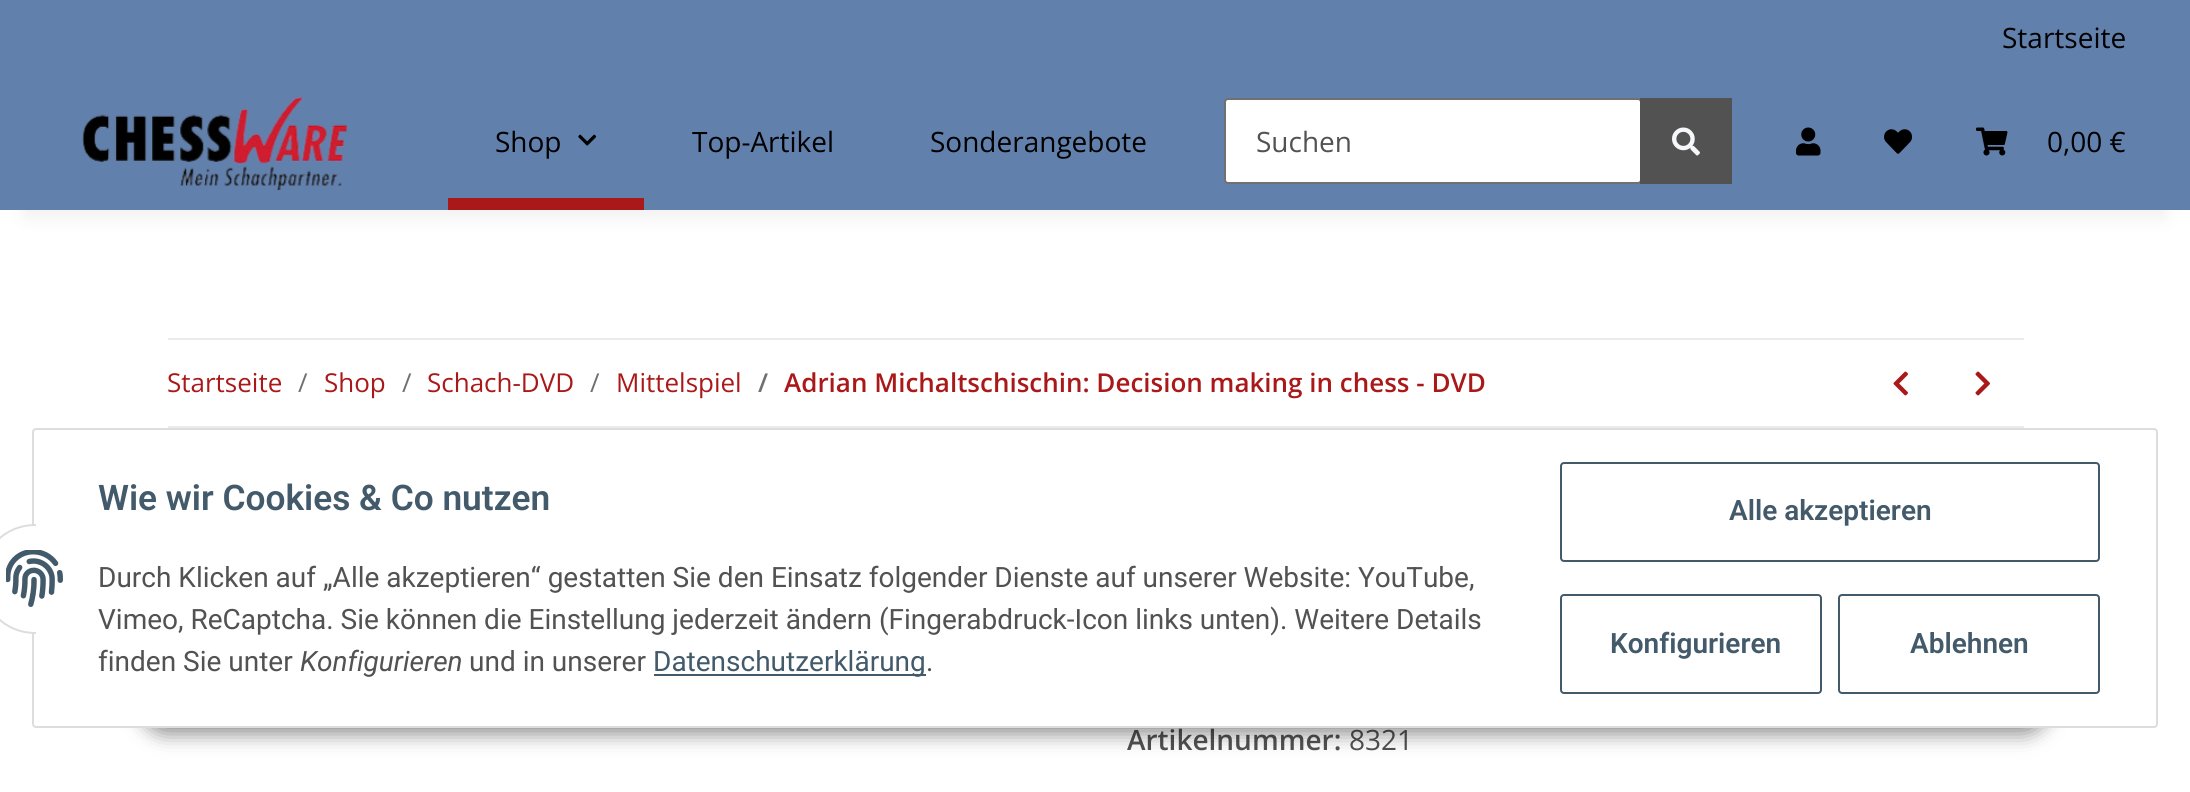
#include <cairo.h>
#include <math.h>
#include <stddef.h>

typedef struct { double x, y; const char *s; } line_t;

static void ink(cairo_t *ctx, unsigned color) {
    cairo_set_source_rgb(ctx, (color >> 16) / 255.0, (color >> 8 & 255) / 255.0, (color & 255) / 255.0);
}

static void round_path(cairo_t *ctx, double x, double y, double w, double h, double r) {
    cairo_new_sub_path(ctx);
    cairo_arc(ctx, x + w - r, y + h - r, r, 0, M_PI / 2);
    cairo_arc(ctx, x + r, y + h - r, r, M_PI / 2, M_PI);
    cairo_arc(ctx, x + r, y + r, r, M_PI, 1.5 * M_PI);
    cairo_arc(ctx, x + w - r, y + r, r, 1.5 * M_PI, 2 * M_PI);
    cairo_close_path(ctx);
}

static void blur_box(cairo_t *ctx, double x, double y, double w, double h, double r, double blur, double alpha) {
    cairo_push_group_with_content(ctx, CAIRO_CONTENT_ALPHA);
    cairo_set_operator(ctx, CAIRO_OPERATOR_SOURCE);
    for (int i = 15; i >= -15 && fmin(w, h) + blur * i / 3 > 0; i -= 2) {
        double e = blur * i / 6;
        cairo_set_source_rgba(ctx, 0, 0, 0, alpha * erfc((i - 1) / 8.5) / 2);
        round_path(ctx, x - e, y - e, w + 2 * e, h + 2 * e, fmax(0, fmin(r + e + blur * .6, fmin(w, h) / 2 + e)));
        cairo_fill(ctx);
    }
    cairo_pattern_t *soft = cairo_pop_group(ctx);
    cairo_mask(ctx, soft);
    cairo_pattern_destroy(soft);
}

static void paste(cairo_t *ctx, const char *path, double x, double y, double w, double h) {
    cairo_surface_t *image = cairo_image_surface_create_from_png(path);
    cairo_save(ctx);
    cairo_set_source_surface(ctx, image, x, y);
    cairo_rectangle(ctx, x, y, w, h);
    cairo_fill(ctx);
    cairo_restore(ctx);
    cairo_surface_destroy(image);
}

int main(void) {
    cairo_surface_t *surface = cairo_image_surface_create(CAIRO_FORMAT_RGB24, 2190, 792);
    cairo_t *ctx = cairo_create(surface);
    cairo_font_options_t *options = cairo_font_options_create();
    cairo_font_options_set_hint_metrics(options, CAIRO_HINT_METRICS_OFF);
    cairo_font_options_set_hint_style(options, CAIRO_HINT_STYLE_NONE);
    cairo_set_font_options(ctx, options);
    cairo_set_miter_limit(ctx, 4);
    ink(ctx, 0xFFFFFF);
    cairo_paint(ctx);
    ink(ctx, 0x000000);
    blur_box(ctx, 24, 130, 2142, 88, 0, 9, 0.06);
    ink(ctx, 0x6280AC);
    cairo_rectangle(ctx, 0, 0, 2190, 210);
    cairo_fill(ctx);
    cairo_select_font_face(ctx, "Open Sans", CAIRO_FONT_SLANT_NORMAL, CAIRO_FONT_WEIGHT_NORMAL);
    cairo_set_font_size(ctx, 28);
    ink(ctx, 0x000000);
    cairo_move_to(ctx, 2002, 48);
    cairo_show_text(ctx, "Startseite");
    paste(ctx, "media/1.png", 82, 96, 266, 95);
    cairo_move_to(ctx, 495, 152);
    cairo_show_text(ctx, "Shop");
    paste(ctx, "media/2.png", 578, 134, 19, 12);
    ink(ctx, 0xAA1919);
    cairo_rectangle(ctx, 448, 198, 196, 12);
    cairo_fill(ctx);
    ink(ctx, 0x000000);
    cairo_move_to(ctx, 692, 152);
    cairo_show_text(ctx, "Top-Artikel");
    cairo_move_to(ctx, 930, 152);
    cairo_show_text(ctx, "Sonderangebote");
    ink(ctx, 0xFFFFFF);
    round_path(ctx, 1225, 99, 416, 84, 3);
    cairo_fill_preserve(ctx);
    ink(ctx, 0x707070);
    cairo_stroke(ctx);
    ink(ctx, 0x525252);
    cairo_move_to(ctx, 1256, 152);
    cairo_show_text(ctx, "Suchen");
    cairo_rectangle(ctx, 1640, 98, 92, 86);
    cairo_fill(ctx);
    paste(ctx, "media/3.png", 1672, 127, 28, 29);
    paste(ctx, "media/4.png", 1796, 127, 25, 29);
    paste(ctx, "media/5.png", 1884, 129, 29, 25);
    paste(ctx, "media/6.png", 1976, 127, 32, 29);
    ink(ctx, 0x000000);
    cairo_move_to(ctx, 2047, 152);
    cairo_show_text(ctx, "0,00 €");
    ink(ctx, 0xEBEBEB);
    cairo_rectangle(ctx, 168, 338, 1856, 2);
    cairo_fill(ctx);
    cairo_rectangle(ctx, 168, 426, 1856, 2);
    cairo_fill(ctx);
    cairo_set_font_size(ctx, 26);
    ink(ctx, 0xAA1919);
    cairo_move_to(ctx, 167, 392);
    cairo_show_text(ctx, "Startseite");
    ink(ctx, 0x707070);
    cairo_move_to(ctx, 298, 392);
    cairo_show_text(ctx, "/");
    ink(ctx, 0xAA1919);
    cairo_move_to(ctx, 324, 392);
    cairo_show_text(ctx, "Shop");
    ink(ctx, 0x707070);
    cairo_move_to(ctx, 402, 392);
    cairo_show_text(ctx, "/");
    ink(ctx, 0xAA1919);
    cairo_move_to(ctx, 427, 392);
    cairo_show_text(ctx, "Schach-DVD");
    ink(ctx, 0x707070);
    cairo_move_to(ctx, 590, 392);
    cairo_show_text(ctx, "/");
    ink(ctx, 0xAA1919);
    cairo_move_to(ctx, 616, 392);
    cairo_show_text(ctx, "Mittelspiel");
    cairo_select_font_face(ctx, "Open Sans SemiBold", CAIRO_FONT_SLANT_NORMAL, CAIRO_FONT_WEIGHT_NORMAL);
    ink(ctx, 0x707070);
    cairo_move_to(ctx, 758, 392);
    cairo_show_text(ctx, "/");
    ink(ctx, 0xAA1919);
    cairo_move_to(ctx, 784, 392);
    cairo_show_text(ctx, "Adrian Michaltschischin: Decision making in chess - DVD");
    paste(ctx, "media/7.png", 1893, 371, 15, 25);
    paste(ctx, "media/8.png", 1975, 371, 15, 25);
    cairo_set_font_size(ctx, 28);
    ink(ctx, 0x525252);
    cairo_move_to(ctx, 1127, 750);
    cairo_show_text(ctx, "Artikelnummer:");
    cairo_select_font_face(ctx, "Open Sans", CAIRO_FONT_SLANT_NORMAL, CAIRO_FONT_WEIGHT_NORMAL);
    cairo_move_to(ctx, 1349, 750);
    cairo_show_text(ctx, "8321");
    ink(ctx, 0x000000);
    blur_box(ctx, 140, 670, 1910, 64, 32, 10, 0.45);
    ink(ctx, 0xFFFFFF);
    round_path(ctx, 33, 429, 2124, 298, 3);
    cairo_fill_preserve(ctx);
    ink(ctx, 0xDDDDDD);
    cairo_stroke(ctx);
    ink(ctx, 0xFFFFFF);
    cairo_arc(ctx, 35, 579, 54, 0, 2 * M_PI);
    cairo_fill_preserve(ctx);
    ink(ctx, 0xDDDDDD);
    cairo_stroke(ctx);
    ink(ctx, 0xFFFFFF);
    cairo_rectangle(ctx, 36, 524, 54, 110);
    cairo_fill(ctx);
    paste(ctx, "media/9.png", 6, 550, 57, 57);
    cairo_select_font_face(ctx, "Roboto SemiBold", CAIRO_FONT_SLANT_NORMAL, CAIRO_FONT_WEIGHT_NORMAL);
    cairo_set_font_size(ctx, 35.25);
    ink(ctx, 0x435A6B);
    cairo_move_to(ctx, 98, 510);
    cairo_show_text(ctx, "Wie wir Cookies & Co nutzen");
    cairo_select_font_face(ctx, "Roboto", CAIRO_FONT_SLANT_NORMAL, CAIRO_FONT_WEIGHT_NORMAL);
    cairo_set_font_size(ctx, 28);
    ink(ctx, 0x525252);
    {
        static const line_t items[] = {
            {98, 587, "Durch Klicken auf „Alle akzeptieren“ gestatten Sie den Einsatz folgender Dienste auf unserer Website: YouTube,"},
            {98, 629, "Vimeo, ReCaptcha. Sie können die Einstellung jederzeit ändern (Fingerabdruck-Icon links unten). Weitere Details"},
            {98, 671, "finden Sie unter"},
        };
        for (size_t i = 0; i < sizeof items / sizeof *items; i++) {
            cairo_move_to(ctx, items[i].x, items[i].y);
            cairo_show_text(ctx, items[i].s);
        }
    }
    cairo_select_font_face(ctx, "Roboto", CAIRO_FONT_SLANT_ITALIC, CAIRO_FONT_WEIGHT_NORMAL);
    cairo_move_to(ctx, 300, 671);
    cairo_show_text(ctx, "Konfigurieren");
    cairo_select_font_face(ctx, "Roboto", CAIRO_FONT_SLANT_NORMAL, CAIRO_FONT_WEIGHT_NORMAL);
    cairo_move_to(ctx, 469, 671);
    cairo_show_text(ctx, "und in unserer");
    ink(ctx, 0x435A6B);
    cairo_rectangle(ctx, 654, 674, 272, 2);
    cairo_fill(ctx);
    cairo_move_to(ctx, 653, 671);
    cairo_show_text(ctx, "Datenschutzerklärung");
    ink(ctx, 0x525252);
    cairo_move_to(ctx, 926, 671);
    cairo_show_text(ctx, ".");
    round_path(ctx, 1561, 463, 538, 98, 3);
    ink(ctx, 0x435A6B);
    cairo_stroke(ctx);
    cairo_select_font_face(ctx, "Roboto SemiBold", CAIRO_FONT_SLANT_NORMAL, CAIRO_FONT_WEIGHT_NORMAL);
    cairo_move_to(ctx, 1729, 520);
    cairo_show_text(ctx, "Alle akzeptieren");
    round_path(ctx, 1561, 595, 260, 98, 3);
    cairo_stroke(ctx);
    cairo_move_to(ctx, 1610, 653);
    cairo_show_text(ctx, "Konfigurieren");
    round_path(ctx, 1839, 595, 260, 98, 3);
    cairo_stroke(ctx);
    cairo_move_to(ctx, 1910, 653);
    cairo_show_text(ctx, "Ablehnen");
    cairo_surface_write_to_png(surface, "image.png");
    cairo_font_options_destroy(options);
    cairo_destroy(ctx);
    cairo_surface_destroy(surface);
    return 0;
}
